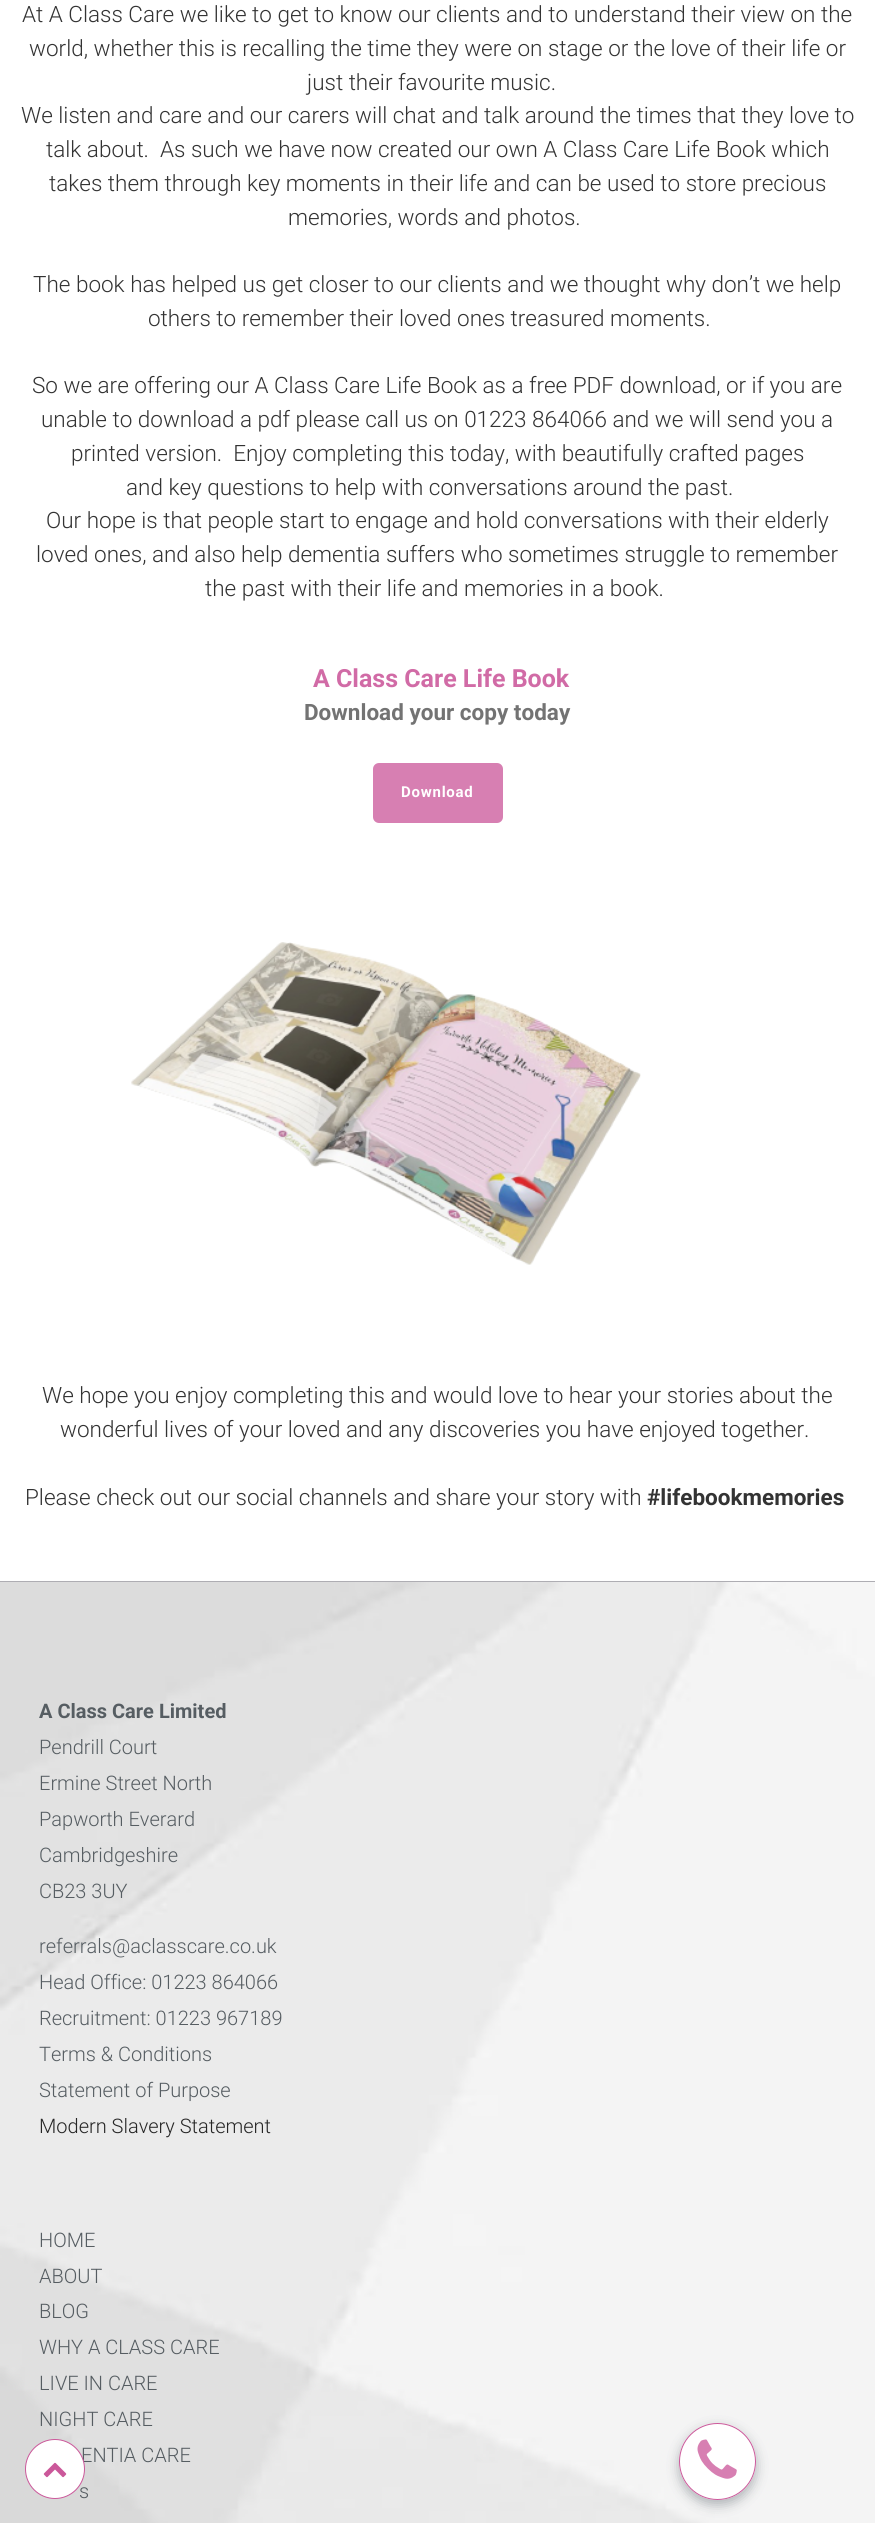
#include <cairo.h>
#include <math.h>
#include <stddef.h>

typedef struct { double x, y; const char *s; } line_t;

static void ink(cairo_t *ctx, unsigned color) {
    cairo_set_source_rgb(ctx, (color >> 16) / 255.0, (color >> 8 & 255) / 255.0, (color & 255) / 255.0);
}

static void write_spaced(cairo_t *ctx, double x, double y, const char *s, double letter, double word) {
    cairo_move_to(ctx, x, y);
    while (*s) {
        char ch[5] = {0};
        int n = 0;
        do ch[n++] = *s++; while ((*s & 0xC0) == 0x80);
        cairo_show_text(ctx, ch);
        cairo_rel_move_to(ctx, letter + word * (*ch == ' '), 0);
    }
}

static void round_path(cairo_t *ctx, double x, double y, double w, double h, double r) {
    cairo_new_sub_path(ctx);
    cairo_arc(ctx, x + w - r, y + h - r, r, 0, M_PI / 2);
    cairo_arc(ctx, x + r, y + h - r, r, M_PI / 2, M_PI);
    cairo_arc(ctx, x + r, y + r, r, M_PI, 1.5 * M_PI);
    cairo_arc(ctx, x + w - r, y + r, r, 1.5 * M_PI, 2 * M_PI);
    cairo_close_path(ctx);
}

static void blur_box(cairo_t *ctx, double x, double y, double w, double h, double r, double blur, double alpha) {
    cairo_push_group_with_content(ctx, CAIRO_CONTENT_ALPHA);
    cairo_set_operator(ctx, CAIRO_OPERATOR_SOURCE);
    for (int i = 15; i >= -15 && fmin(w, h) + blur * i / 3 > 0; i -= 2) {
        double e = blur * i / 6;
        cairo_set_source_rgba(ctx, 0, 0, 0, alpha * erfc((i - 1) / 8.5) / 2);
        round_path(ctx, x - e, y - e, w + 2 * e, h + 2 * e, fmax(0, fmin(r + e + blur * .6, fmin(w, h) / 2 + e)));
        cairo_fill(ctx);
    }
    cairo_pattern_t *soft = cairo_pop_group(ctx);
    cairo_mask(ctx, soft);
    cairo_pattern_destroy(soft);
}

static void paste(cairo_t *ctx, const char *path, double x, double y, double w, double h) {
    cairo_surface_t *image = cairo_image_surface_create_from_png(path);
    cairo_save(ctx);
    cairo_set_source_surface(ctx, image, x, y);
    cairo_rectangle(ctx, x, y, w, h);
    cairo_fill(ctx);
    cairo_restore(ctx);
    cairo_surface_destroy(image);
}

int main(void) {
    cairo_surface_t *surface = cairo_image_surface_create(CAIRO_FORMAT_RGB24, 875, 2523);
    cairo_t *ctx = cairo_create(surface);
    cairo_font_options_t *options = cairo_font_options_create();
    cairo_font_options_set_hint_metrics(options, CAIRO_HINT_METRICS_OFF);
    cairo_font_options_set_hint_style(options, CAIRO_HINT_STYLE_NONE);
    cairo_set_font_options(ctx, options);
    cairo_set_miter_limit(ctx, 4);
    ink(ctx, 0xFFFFFF);
    cairo_paint(ctx);
    cairo_select_font_face(ctx, "Roboto Light", CAIRO_FONT_SLANT_NORMAL, CAIRO_FONT_WEIGHT_NORMAL);
    cairo_set_font_size(ctx, 22.5);
    ink(ctx, 0x333333);
    {
        static const line_t items[] = {
            {22, 22, "At A Class Care we like to get to know our clients and to understand their view on the"},
            {29, 56, "world, whether this is recalling the time they were on stage or the love of their life or"},
            {307, 90, "just their favourite music."},
            {21, 123, "We listen and care and our carers will chat and talk around the times that they love to"},
            {46, 157, "talk about.  As such we have now created our own A Class Care Life Book which"},
            {49, 191, "takes them through key moments in their life and can be used to store precious"},
            {288, 225, "memories, words and photos."},
            {33, 292, "The book has helped us get closer to our clients and we thought why don’t we help"},
            {148, 326, "others to remember their loved ones treasured moments."},
            {32, 393, "So we are offering our A Class Care Life Book as a free PDF download, or if you are"},
            {41, 427, "unable to download a pdf please call us on 01223 864066 and we will send you a"},
            {71, 461, "printed version.  Enjoy completing this today, with beautifully crafted pages"},
            {126, 495, "and key questions to help with conversations around the past."},
            {46, 528, "Our hope is that people start to engage and hold conversations with their elderly"},
            {36, 562, "loved ones, and also help dementia suffers who sometimes struggle to remember"},
            {205, 596, "the past with their life and memories in a book."},
        };
        for (size_t i = 0; i < sizeof items / sizeof *items; i++) {
            cairo_move_to(ctx, items[i].x, items[i].y);
            cairo_show_text(ctx, items[i].s);
        }
    }
    cairo_select_font_face(ctx, "Roboto", CAIRO_FONT_SLANT_NORMAL, CAIRO_FONT_WEIGHT_BOLD);
    cairo_set_font_size(ctx, 25);
    ink(ctx, 0xD16BA6);
    cairo_move_to(ctx, 313, 687);
    cairo_show_text(ctx, "A Class Care Life Book");
    cairo_set_font_size(ctx, 22.5);
    ink(ctx, 0x737373);
    cairo_move_to(ctx, 304, 720);
    cairo_show_text(ctx, "Download your copy today");
    ink(ctx, 0xD77FB2);
    round_path(ctx, 374.5, 764.5, 127, 57, 4.5);
    cairo_fill_preserve(ctx);
    cairo_set_line_width(ctx, 3);
    cairo_stroke(ctx);
    cairo_set_font_size(ctx, 15);
    ink(ctx, 0xFFFFFF);
    write_spaced(ctx, 401, 797, "Download", 0.75, 0);
    paste(ctx, "media/1.png", 131, 942, 510, 323);
    cairo_select_font_face(ctx, "Roboto Light", CAIRO_FONT_SLANT_NORMAL, CAIRO_FONT_WEIGHT_NORMAL);
    cairo_set_font_size(ctx, 22.5);
    ink(ctx, 0x333333);
    {
        static const line_t items[] = {
            {42, 1403, "We hope you enjoy completing this and would love to hear your stories about the"},
            {60, 1437, "wonderful lives of your loved and any discoveries you have enjoyed together."},
            {25, 1505, "Please check out our social channels and share your story with"},
        };
        for (size_t i = 0; i < sizeof items / sizeof *items; i++) {
            cairo_move_to(ctx, items[i].x, items[i].y);
            cairo_show_text(ctx, items[i].s);
        }
    }
    cairo_select_font_face(ctx, "Roboto", CAIRO_FONT_SLANT_NORMAL, CAIRO_FONT_WEIGHT_BOLD);
    cairo_move_to(ctx, 647, 1505);
    cairo_show_text(ctx, "#lifebookmemories");
    ink(ctx, 0xAEADB3);
    cairo_rectangle(ctx, 0, 1581, 875, 1);
    cairo_fill(ctx);
    paste(ctx, "media/2.png", 0, 1582, 875, 941);
    cairo_set_font_size(ctx, 20);
    ink(ctx, 0x565D62);
    cairo_move_to(ctx, 39, 1718);
    cairo_show_text(ctx, "A Class Care Limited");
    cairo_select_font_face(ctx, "Roboto Light", CAIRO_FONT_SLANT_NORMAL, CAIRO_FONT_WEIGHT_NORMAL);
    {
        static const line_t items[] = {
            {39, 1754, "Pendrill Court"},
            {39, 1790, "Ermine Street North"},
            {39, 1826, "Papworth Everard"},
            {39, 1862, "Cambridgeshire"},
            {39, 1898, "CB23 3UY"},
            {39, 1953, "referrals@aclasscare.co.uk"},
            {39, 1989, "Head Office: 01223 864066"},
            {39, 2025, "Recruitment: 01223 967189"},
            {39, 2061, "Terms & Conditions"},
            {39, 2097, "Statement of Purpose"},
        };
        for (size_t i = 0; i < sizeof items / sizeof *items; i++) {
            cairo_move_to(ctx, items[i].x, items[i].y);
            cairo_show_text(ctx, items[i].s);
        }
    }
    ink(ctx, 0x262626);
    cairo_move_to(ctx, 39, 2133);
    cairo_show_text(ctx, "Modern Slavery Statement");
    ink(ctx, 0x565D62);
    {
        static const line_t items[] = {
            {39, 2247, "HOME"},
            {39, 2283, "ABOUT"},
            {39, 2318, "BLOG"},
            {39, 2354, "WHY A CLASS CARE"},
            {39, 2390, "LIVE IN CARE"},
            {39, 2426, "NIGHT CARE"},
            {81, 2462, "ENTIA CARE"},
            {79, 2498, "s"},
        };
        for (size_t i = 0; i < sizeof items / sizeof *items; i++) {
            cairo_move_to(ctx, items[i].x, items[i].y);
            cairo_show_text(ctx, items[i].s);
        }
    }
    cairo_save(ctx);
    cairo_set_fill_rule(ctx, CAIRO_FILL_RULE_EVEN_ODD);
    cairo_new_path(ctx);
    cairo_move_to(ctx, 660, 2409);
    cairo_line_to(ctx, 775, 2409);
    cairo_line_to(ctx, 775, 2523);
    cairo_line_to(ctx, 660, 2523);
    cairo_close_path(ctx);
    cairo_move_to(ctx, 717.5, 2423);
    cairo_curve_to(ctx, 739, 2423, 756, 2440, 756, 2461.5);
    cairo_curve_to(ctx, 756, 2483, 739, 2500, 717.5, 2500);
    cairo_curve_to(ctx, 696, 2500, 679, 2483, 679, 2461.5);
    cairo_curve_to(ctx, 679, 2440, 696, 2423, 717.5, 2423);
    cairo_close_path(ctx);
    cairo_clip(ctx);
    ink(ctx, 0x2E3A46);
    blur_box(ctx, 679, 2428, 77, 77, 38.5, 6, 0.35);
    cairo_restore(ctx);
    ink(ctx, 0xFFFFFF);
    cairo_arc(ctx, 717.5, 2461.5, 38, 0, 2 * M_PI);
    cairo_fill_preserve(ctx);
    ink(ctx, 0xCB589A);
    cairo_set_line_width(ctx, 1);
    cairo_stroke(ctx);
    paste(ctx, "media/3.png", 697, 2439, 40, 40);
    ink(ctx, 0xFFFFFF);
    cairo_arc(ctx, 55, 2469, 29.5, 0, 2 * M_PI);
    cairo_fill_preserve(ctx);
    ink(ctx, 0xCB589A);
    cairo_stroke(ctx);
    paste(ctx, "media/4.png", 43, 2462, 24, 16);
    cairo_surface_write_to_png(surface, "image.png");
    cairo_font_options_destroy(options);
    cairo_destroy(ctx);
    cairo_surface_destroy(surface);
    return 0;
}
